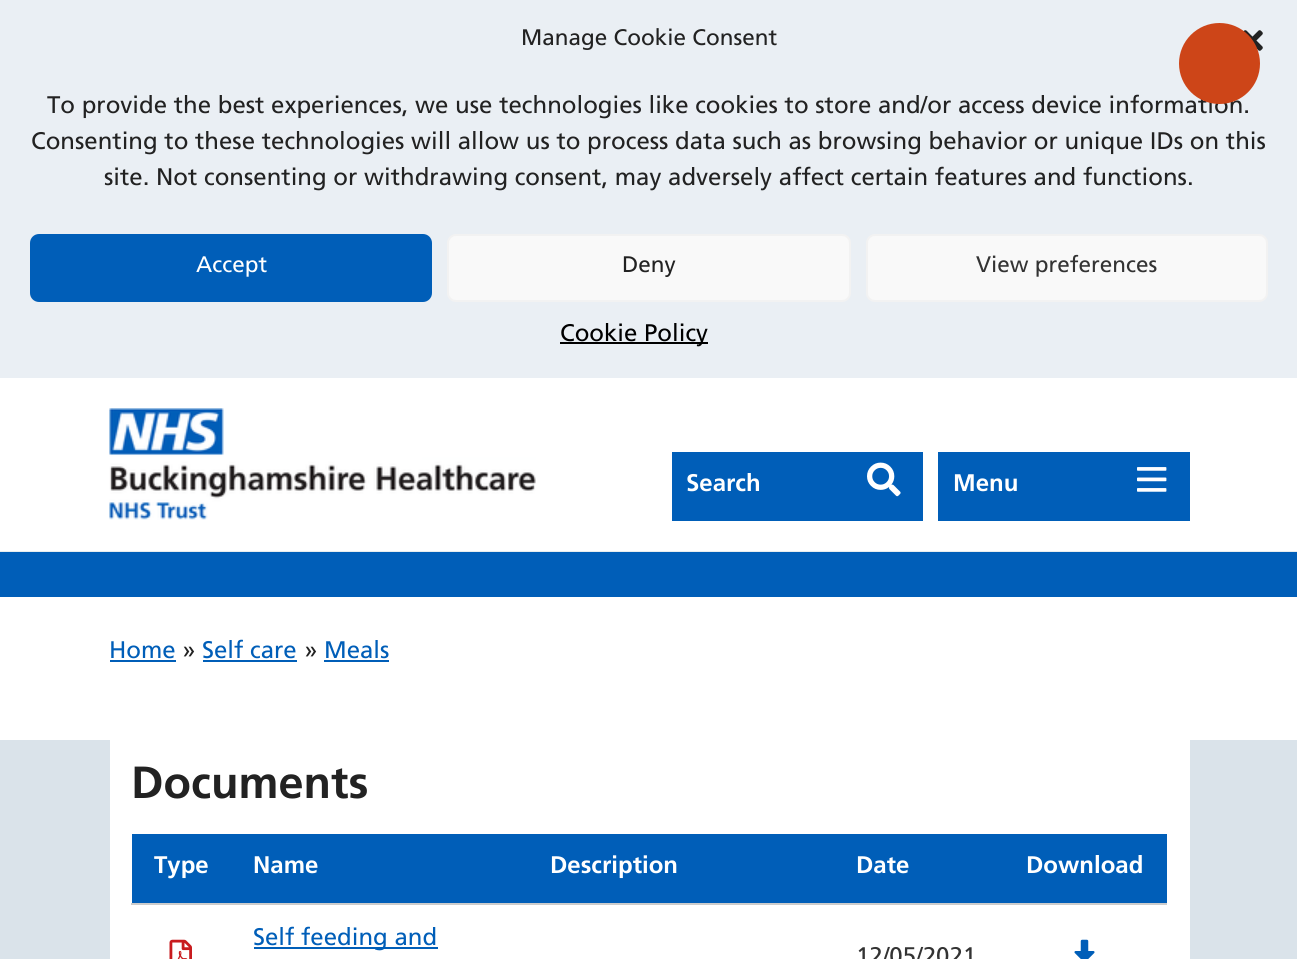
#include <cairo.h>
#include <math.h>
#include <stddef.h>

typedef struct { double x, y; const char *s; } line_t;
typedef struct { double x, y, w, h; unsigned color; } box_t;

static void ink(cairo_t *ctx, unsigned color) {
    cairo_set_source_rgb(ctx, (color >> 16) / 255.0, (color >> 8 & 255) / 255.0, (color & 255) / 255.0);
}

static void round_path(cairo_t *ctx, double x, double y, double w, double h, double r) {
    cairo_new_sub_path(ctx);
    cairo_arc(ctx, x + w - r, y + h - r, r, 0, M_PI / 2);
    cairo_arc(ctx, x + r, y + h - r, r, M_PI / 2, M_PI);
    cairo_arc(ctx, x + r, y + r, r, M_PI, 1.5 * M_PI);
    cairo_arc(ctx, x + w - r, y + r, r, 1.5 * M_PI, 2 * M_PI);
    cairo_close_path(ctx);
}

static void paste(cairo_t *ctx, const char *path, double x, double y, double w, double h) {
    cairo_surface_t *image = cairo_image_surface_create_from_png(path);
    cairo_save(ctx);
    cairo_set_source_surface(ctx, image, x, y);
    cairo_rectangle(ctx, x, y, w, h);
    cairo_fill(ctx);
    cairo_restore(ctx);
    cairo_surface_destroy(image);
}

int main(void) {
    cairo_surface_t *surface = cairo_image_surface_create(CAIRO_FORMAT_RGB24, 1297, 959);
    cairo_t *ctx = cairo_create(surface);
    cairo_font_options_t *options = cairo_font_options_create();
    cairo_font_options_set_hint_metrics(options, CAIRO_HINT_METRICS_OFF);
    cairo_font_options_set_hint_style(options, CAIRO_HINT_STYLE_NONE);
    cairo_set_font_options(ctx, options);
    cairo_set_miter_limit(ctx, 4);
    ink(ctx, 0xFFFFFF);
    cairo_paint(ctx);
    ink(ctx, 0xEAEFF4);
    cairo_rectangle(ctx, 0, 0, 1297, 378);
    cairo_fill(ctx);
    paste(ctx, "media/1.png", 1243, 30, 20, 21);
    cairo_select_font_face(ctx, "Frutiger", CAIRO_FONT_SLANT_NORMAL, CAIRO_FONT_WEIGHT_NORMAL);
    cairo_set_font_size(ctx, 24);
    ink(ctx, 0x222222);
    cairo_move_to(ctx, 47, 113);
    cairo_show_text(ctx, "To provide the best experiences, we use technologies like cookies to store and/or access device information.");
    ink(ctx, 0xCD4518);
    cairo_new_path(ctx);
    cairo_arc(ctx, 1219.5, 63.5, 40.5, 0, 2 * M_PI);
    cairo_fill(ctx);
    cairo_set_font_size(ctx, 22.5);
    ink(ctx, 0x222222);
    cairo_move_to(ctx, 521, 45);
    cairo_show_text(ctx, "Manage Cookie Consent");
    cairo_set_font_size(ctx, 24);
    cairo_move_to(ctx, 31, 149);
    cairo_show_text(ctx, "Consenting to these technologies will allow us to process data such as browsing behavior or unique IDs on this");
    cairo_move_to(ctx, 104, 185);
    cairo_show_text(ctx, "site. Not consenting or withdrawing consent, may adversely affect certain features and functions.");
    ink(ctx, 0x005EB8);
    round_path(ctx, 31, 235, 400, 66, 8);
    cairo_fill_preserve(ctx);
    cairo_stroke(ctx);
    cairo_set_font_size(ctx, 22.5);
    ink(ctx, 0xFFFFFF);
    cairo_move_to(ctx, 196, 272);
    cairo_show_text(ctx, "Accept");
    ink(ctx, 0xF9F9F9);
    round_path(ctx, 448, 235, 402, 66, 8);
    cairo_fill_preserve(ctx);
    ink(ctx, 0xF2F2F2);
    cairo_stroke(ctx);
    ink(ctx, 0x222222);
    cairo_move_to(ctx, 622, 272);
    cairo_show_text(ctx, "Deny");
    ink(ctx, 0xF9F9F9);
    round_path(ctx, 867, 235, 400, 66, 8);
    cairo_fill_preserve(ctx);
    ink(ctx, 0xF2F2F2);
    cairo_stroke(ctx);
    ink(ctx, 0x333333);
    cairo_move_to(ctx, 976, 272);
    cairo_show_text(ctx, "View preferences");
    ink(ctx, 0x000000);
    cairo_rectangle(ctx, 560, 342, 148, 2);
    cairo_fill(ctx);
    cairo_set_font_size(ctx, 24);
    cairo_move_to(ctx, 560, 341);
    cairo_show_text(ctx, "Cookie Policy");
    paste(ctx, "media/2.png", 109, 408, 427, 112);
    ink(ctx, 0x005EB8);
    cairo_rectangle(ctx, 672, 452, 251, 69);
    cairo_fill(ctx);
    cairo_select_font_face(ctx, "Frutiger", CAIRO_FONT_SLANT_NORMAL, CAIRO_FONT_WEIGHT_BOLD);
    ink(ctx, 0xFFFFFF);
    cairo_move_to(ctx, 686, 491);
    cairo_show_text(ctx, "Search");
    paste(ctx, "media/3.png", 867, 462, 34, 35);
    ink(ctx, 0x005EB8);
    cairo_rectangle(ctx, 938, 452, 252, 69);
    cairo_fill(ctx);
    ink(ctx, 0xFFFFFF);
    cairo_move_to(ctx, 953, 491);
    cairo_show_text(ctx, "Menu");
    paste(ctx, "media/4.png", 1137, 467, 30, 25);
    ink(ctx, 0xE8EDEE);
    cairo_rectangle(ctx, 0, 551, 1297, 1);
    cairo_fill(ctx);
    ink(ctx, 0x005EB8);
    cairo_rectangle(ctx, 0, 552, 1297, 45);
    cairo_fill(ctx);
    cairo_select_font_face(ctx, "Frutiger", CAIRO_FONT_SLANT_NORMAL, CAIRO_FONT_WEIGHT_NORMAL);
    cairo_move_to(ctx, 109, 658);
    cairo_show_text(ctx, "Home");
    cairo_rectangle(ctx, 110, 660, 66, 2);
    cairo_fill(ctx);
    ink(ctx, 0x222222);
    cairo_move_to(ctx, 182, 658);
    cairo_show_text(ctx, "»");
    ink(ctx, 0x005EB8);
    cairo_move_to(ctx, 202, 658);
    cairo_show_text(ctx, "Self care");
    cairo_rectangle(ctx, 203, 660, 94, 2);
    cairo_fill(ctx);
    ink(ctx, 0x222222);
    cairo_move_to(ctx, 304, 658);
    cairo_show_text(ctx, "»");
    ink(ctx, 0x005EB8);
    cairo_move_to(ctx, 324, 658);
    cairo_show_text(ctx, "Meals");
    {
        static const box_t items[] = {
            {324, 660, 65, 2, 0x005EB8},
            {0, 740, 1297, 219, 0xDAE3EA},
            {110, 740, 1080, 219, 0xFFFFFF},
        };
        for (size_t i = 0; i < sizeof items / sizeof *items; i++) {
            ink(ctx, items[i].color);
            cairo_rectangle(ctx, items[i].x, items[i].y, items[i].w, items[i].h);
            cairo_fill(ctx);
        }
    }
    cairo_select_font_face(ctx, "Frutiger", CAIRO_FONT_SLANT_NORMAL, CAIRO_FONT_WEIGHT_BOLD);
    cairo_set_font_size(ctx, 45);
    ink(ctx, 0x222222);
    cairo_move_to(ctx, 131, 798);
    cairo_show_text(ctx, "Documents");
    ink(ctx, 0x005EB8);
    cairo_rectangle(ctx, 132, 834, 1035, 69);
    cairo_fill(ctx);
    cairo_set_font_size(ctx, 24);
    ink(ctx, 0xFFFFFF);
    {
        static const line_t items[] = {
            {154, 873, "Type"},
            {253, 873, "Name"},
            {550, 873, "Description"},
            {856, 873, "Date"},
        };
        for (size_t i = 0; i < sizeof items / sizeof *items; i++) {
            cairo_move_to(ctx, items[i].x, items[i].y);
            cairo_show_text(ctx, items[i].s);
        }
    }
    ink(ctx, 0xCCCCCC);
    cairo_rectangle(ctx, 131, 903, 1036, 2);
    cairo_fill(ctx);
    ink(ctx, 0xFFFFFF);
    cairo_move_to(ctx, 1026, 873);
    cairo_show_text(ctx, "Download");
    paste(ctx, "media/5.png", 169, 939, 23, 20);
    ink(ctx, 0x005EB8);
    cairo_rectangle(ctx, 254, 947, 184, 2);
    cairo_fill(ctx);
    cairo_select_font_face(ctx, "Frutiger", CAIRO_FONT_SLANT_NORMAL, CAIRO_FONT_WEIGHT_NORMAL);
    cairo_move_to(ctx, 253, 945);
    cairo_show_text(ctx, "Self feeding and");
    ink(ctx, 0x333333);
    cairo_move_to(ctx, 856, 964);
    cairo_show_text(ctx, "12/05/2021");
    paste(ctx, "media/6.png", 1074, 939, 21, 20);
    cairo_surface_write_to_png(surface, "image.png");
    cairo_font_options_destroy(options);
    cairo_destroy(ctx);
    cairo_surface_destroy(surface);
    return 0;
}
